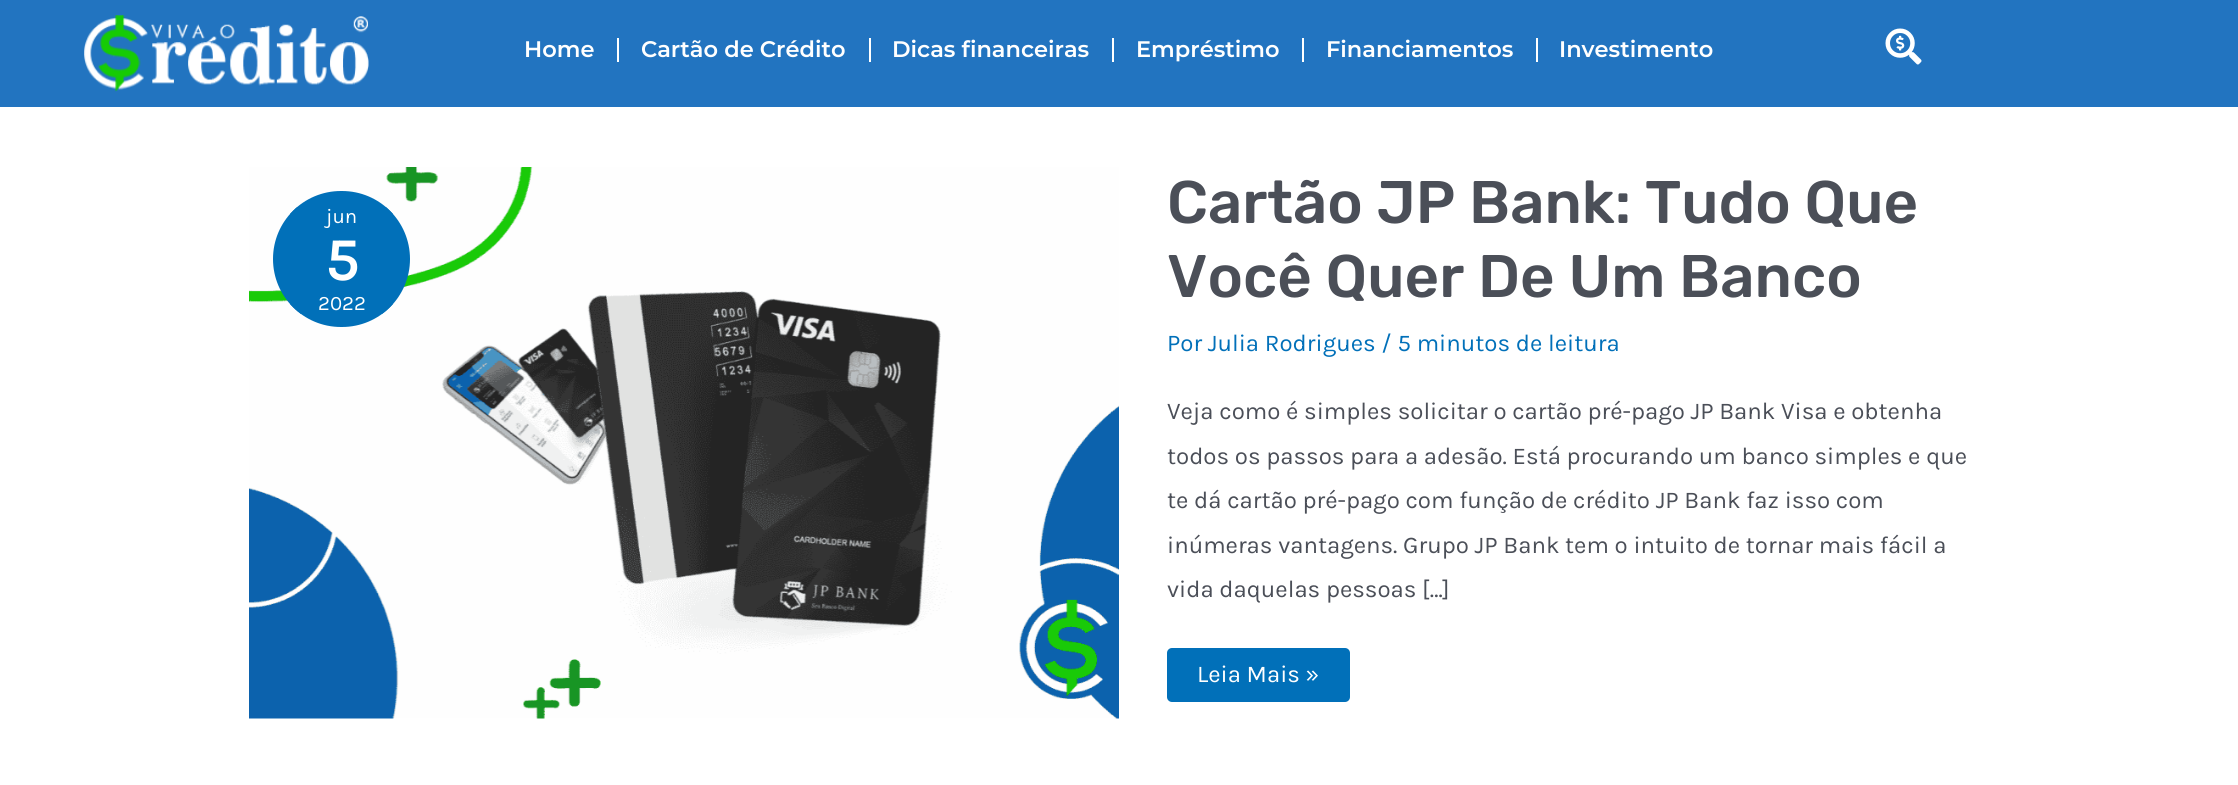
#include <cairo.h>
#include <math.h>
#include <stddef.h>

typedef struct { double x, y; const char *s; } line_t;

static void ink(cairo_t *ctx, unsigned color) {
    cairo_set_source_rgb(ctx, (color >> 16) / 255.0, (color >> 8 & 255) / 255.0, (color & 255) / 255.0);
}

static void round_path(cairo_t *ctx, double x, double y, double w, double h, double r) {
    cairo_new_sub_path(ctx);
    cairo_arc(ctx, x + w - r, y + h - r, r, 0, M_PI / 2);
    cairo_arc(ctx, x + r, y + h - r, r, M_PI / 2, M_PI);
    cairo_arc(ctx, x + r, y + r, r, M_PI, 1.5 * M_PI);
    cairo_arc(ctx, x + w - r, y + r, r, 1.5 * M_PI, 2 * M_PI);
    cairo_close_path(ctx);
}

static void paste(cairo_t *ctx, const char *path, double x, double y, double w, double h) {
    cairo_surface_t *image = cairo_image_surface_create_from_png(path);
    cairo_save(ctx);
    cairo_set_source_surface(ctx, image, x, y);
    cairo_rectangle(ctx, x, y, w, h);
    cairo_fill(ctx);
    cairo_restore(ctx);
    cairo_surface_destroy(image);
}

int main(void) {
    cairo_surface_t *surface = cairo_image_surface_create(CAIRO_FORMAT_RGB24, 2238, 785);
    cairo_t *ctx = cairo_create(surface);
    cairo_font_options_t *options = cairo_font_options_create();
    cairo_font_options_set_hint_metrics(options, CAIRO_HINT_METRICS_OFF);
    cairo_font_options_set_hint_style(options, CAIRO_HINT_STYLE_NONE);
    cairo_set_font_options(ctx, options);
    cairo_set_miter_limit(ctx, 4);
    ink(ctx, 0xFFFFFF);
    cairo_paint(ctx);
    ink(ctx, 0x2274C0);
    cairo_rectangle(ctx, 0, 0, 2238, 107);
    cairo_fill(ctx);
    paste(ctx, "media/1.png", 84, 15, 285, 77);
    cairo_select_font_face(ctx, "Montserrat SemiBold", CAIRO_FONT_SLANT_NORMAL, CAIRO_FONT_WEIGHT_NORMAL);
    cairo_set_font_size(ctx, 22.5);
    ink(ctx, 0xFFFFFF);
    cairo_move_to(ctx, 524, 57);
    cairo_show_text(ctx, "Home");
    cairo_rectangle(ctx, 617, 38, 2, 24);
    cairo_fill(ctx);
    cairo_move_to(ctx, 641, 57);
    cairo_show_text(ctx, "Cartão de Crédito");
    cairo_rectangle(ctx, 869, 38, 2, 24);
    cairo_fill(ctx);
    cairo_move_to(ctx, 892, 57);
    cairo_show_text(ctx, "Dicas financeiras");
    cairo_rectangle(ctx, 1112, 38, 2, 24);
    cairo_fill(ctx);
    cairo_move_to(ctx, 1136, 57);
    cairo_show_text(ctx, "Empréstimo");
    cairo_rectangle(ctx, 1302, 38, 2, 24);
    cairo_fill(ctx);
    cairo_move_to(ctx, 1326, 57);
    cairo_show_text(ctx, "Financiamentos");
    cairo_rectangle(ctx, 1536, 38, 2, 24);
    cairo_fill(ctx);
    cairo_move_to(ctx, 1559, 57);
    cairo_show_text(ctx, "Investimento");
    paste(ctx, "media/2.png", 1885, 28, 37, 37);
    paste(ctx, "media/3.png", 249, 167, 870, 552);
    ink(ctx, 0x0170B9);
    round_path(ctx, 273, 191, 137, 136, 68);
    cairo_fill(ctx);
    cairo_save(ctx);
    round_path(ctx, 273, 191, 137, 136, 68);
    cairo_clip(ctx);
    cairo_rectangle(ctx, 290, 207, 103, 20);
    cairo_fill(ctx);
    cairo_restore(ctx);
    cairo_select_font_face(ctx, "Karla", CAIRO_FONT_SLANT_NORMAL, CAIRO_FONT_WEIGHT_NORMAL);
    cairo_set_font_size(ctx, 20.5);
    ink(ctx, 0xFFFFFF);
    cairo_move_to(ctx, 326, 223);
    cairo_show_text(ctx, "jun");
    cairo_select_font_face(ctx, "Karla", CAIRO_FONT_SLANT_NORMAL, CAIRO_FONT_WEIGHT_BOLD);
    cairo_set_font_size(ctx, 60);
    cairo_move_to(ctx, 325, 280);
    cairo_show_text(ctx, "5");
    cairo_save(ctx);
    round_path(ctx, 273, 191, 137, 136, 68);
    cairo_clip(ctx);
    ink(ctx, 0x0170B9);
    cairo_rectangle(ctx, 290, 293, 103, 21);
    cairo_fill(ctx);
    cairo_restore(ctx);
    cairo_select_font_face(ctx, "Karla", CAIRO_FONT_SLANT_NORMAL, CAIRO_FONT_WEIGHT_NORMAL);
    cairo_set_font_size(ctx, 20.5);
    cairo_move_to(ctx, 318, 310);
    cairo_show_text(ctx, "2022");
    cairo_select_font_face(ctx, "Rubik Light", CAIRO_FONT_SLANT_NORMAL, CAIRO_FONT_WEIGHT_NORMAL);
    cairo_set_font_size(ctx, 60);
    ink(ctx, 0x4B4F58);
    cairo_move_to(ctx, 1167, 223);
    cairo_show_text(ctx, "Cartão JP Bank: Tudo Que");
    cairo_move_to(ctx, 1167, 297);
    cairo_show_text(ctx, "Você Quer De Um Banco");
    cairo_select_font_face(ctx, "Karla", CAIRO_FONT_SLANT_NORMAL, CAIRO_FONT_WEIGHT_NORMAL);
    cairo_set_font_size(ctx, 24);
    ink(ctx, 0x0170B9);
    cairo_move_to(ctx, 1167, 351);
    cairo_show_text(ctx, "Por Julia Rodrigues / 5 minutos de leitura");
    ink(ctx, 0x4B4F58);
    {
        static const line_t items[] = {
            {1167, 419, "Veja como é simples solicitar o cartão pré-pago JP Bank Visa e obtenha"},
            {1167, 464, "todos os passos para a adesão. Está procurando um banco simples e que"},
            {1167, 508, "te dá cartão pré-pago com função de crédito JP Bank faz isso com"},
            {1167, 553, "inúmeras vantagens. Grupo JP Bank tem o intuito de tornar mais fácil a"},
            {1167, 597, "vida daquelas pessoas […]"},
        };
        for (size_t i = 0; i < sizeof items / sizeof *items; i++) {
            cairo_move_to(ctx, items[i].x, items[i].y);
            cairo_show_text(ctx, items[i].s);
        }
    }
    ink(ctx, 0x0170B9);
    round_path(ctx, 1167, 648, 183, 54, 5);
    cairo_fill(ctx);
    ink(ctx, 0xFFFFFF);
    cairo_move_to(ctx, 1197, 682);
    cairo_show_text(ctx, "Leia Mais »");
    cairo_surface_write_to_png(surface, "image.png");
    cairo_font_options_destroy(options);
    cairo_destroy(ctx);
    cairo_surface_destroy(surface);
    return 0;
}
